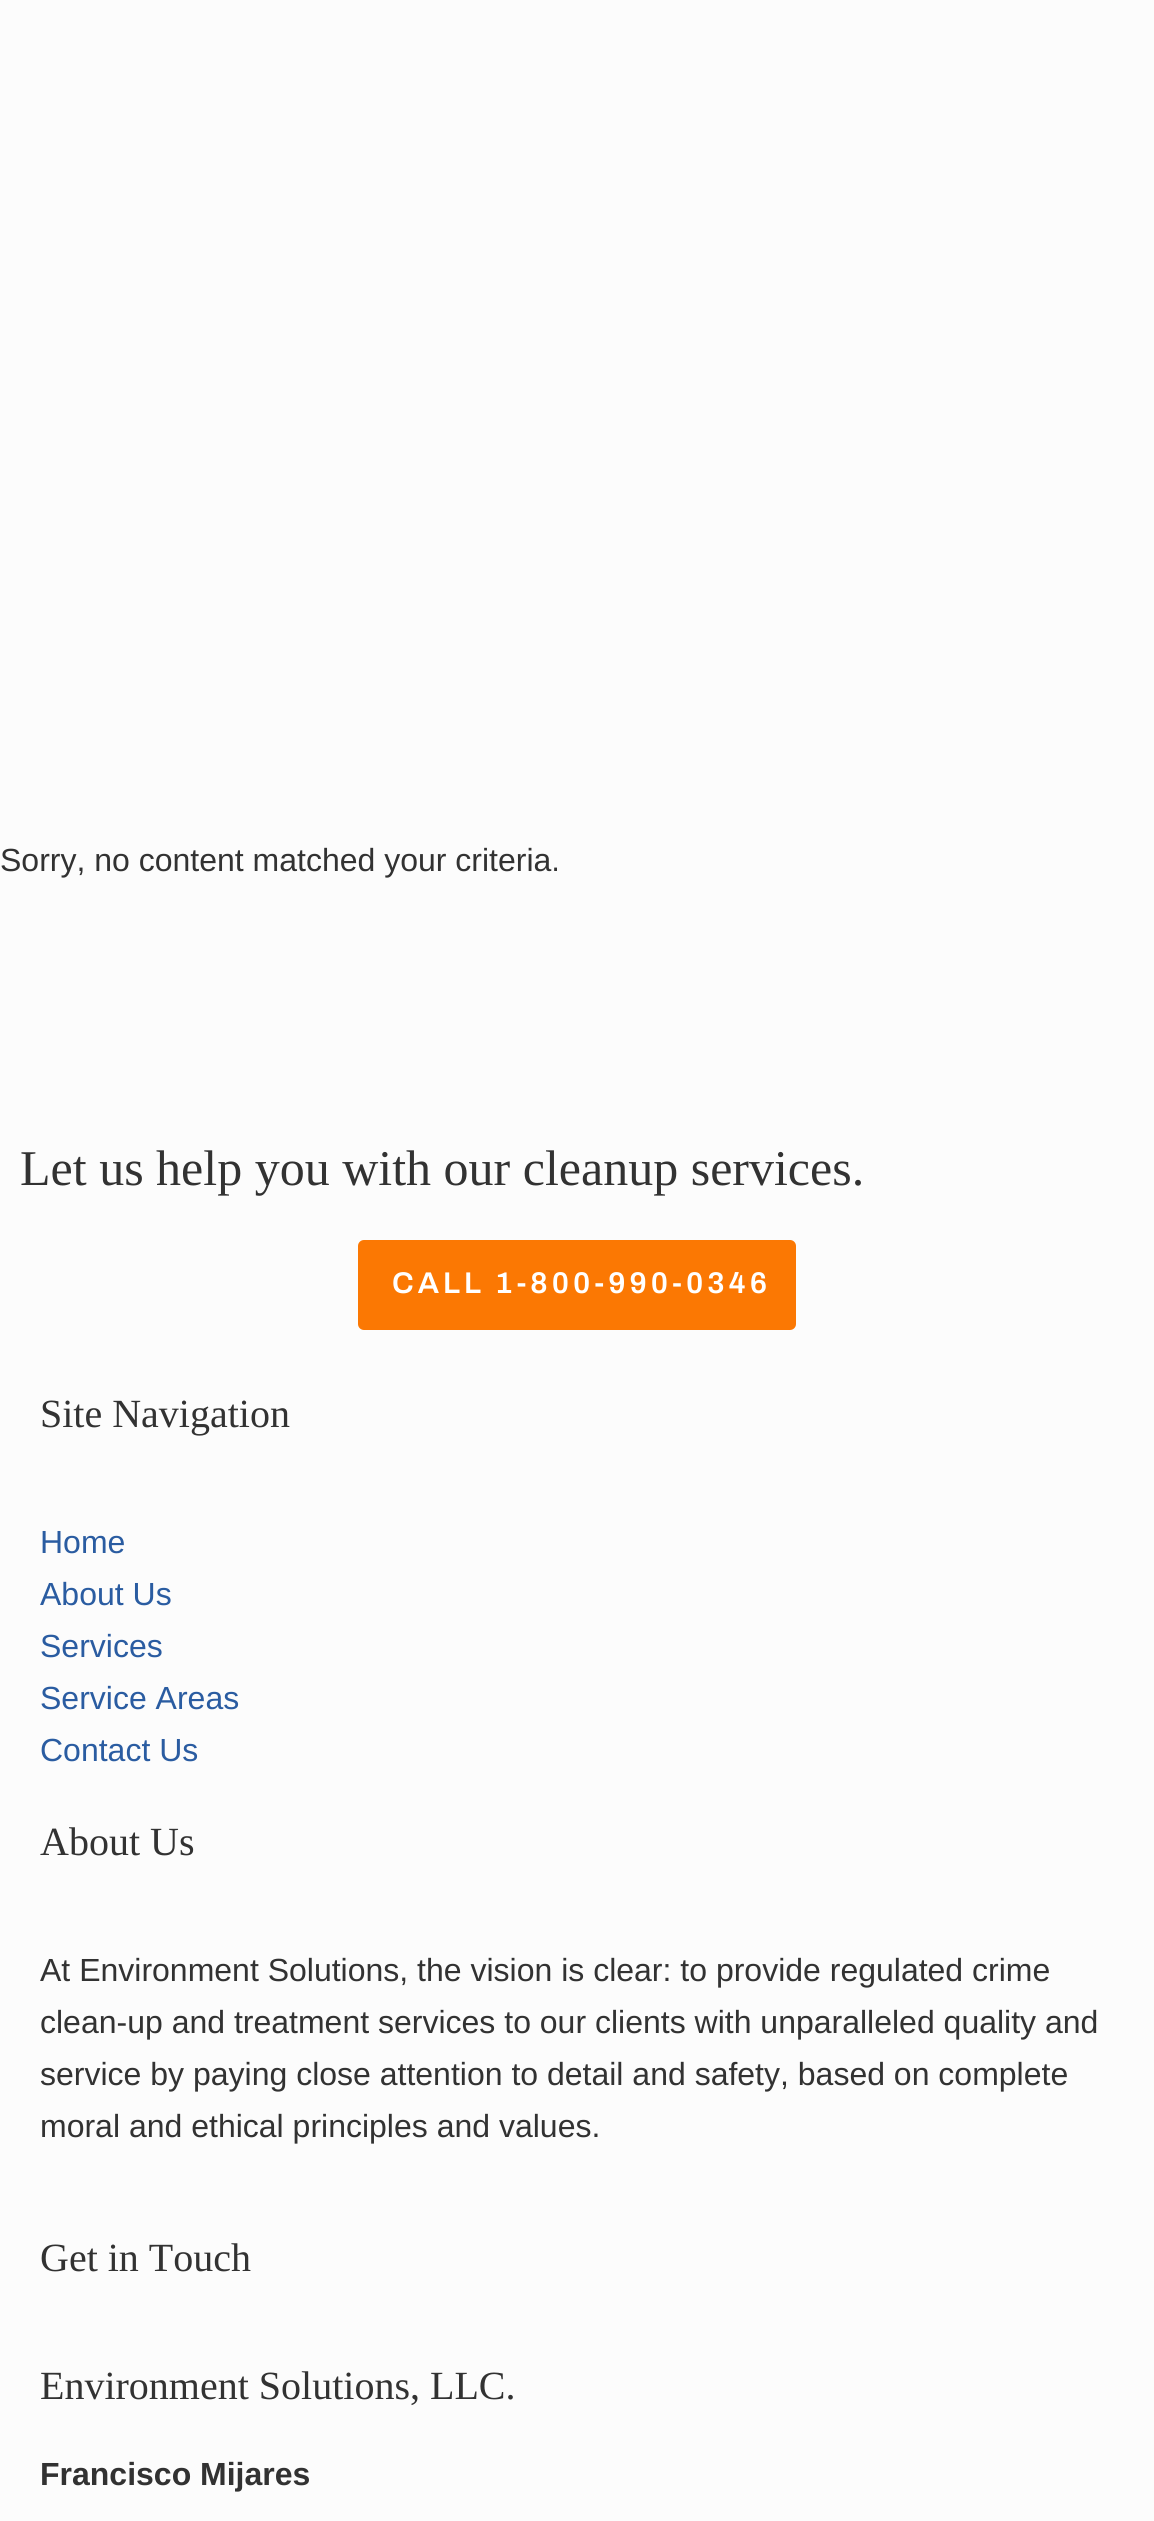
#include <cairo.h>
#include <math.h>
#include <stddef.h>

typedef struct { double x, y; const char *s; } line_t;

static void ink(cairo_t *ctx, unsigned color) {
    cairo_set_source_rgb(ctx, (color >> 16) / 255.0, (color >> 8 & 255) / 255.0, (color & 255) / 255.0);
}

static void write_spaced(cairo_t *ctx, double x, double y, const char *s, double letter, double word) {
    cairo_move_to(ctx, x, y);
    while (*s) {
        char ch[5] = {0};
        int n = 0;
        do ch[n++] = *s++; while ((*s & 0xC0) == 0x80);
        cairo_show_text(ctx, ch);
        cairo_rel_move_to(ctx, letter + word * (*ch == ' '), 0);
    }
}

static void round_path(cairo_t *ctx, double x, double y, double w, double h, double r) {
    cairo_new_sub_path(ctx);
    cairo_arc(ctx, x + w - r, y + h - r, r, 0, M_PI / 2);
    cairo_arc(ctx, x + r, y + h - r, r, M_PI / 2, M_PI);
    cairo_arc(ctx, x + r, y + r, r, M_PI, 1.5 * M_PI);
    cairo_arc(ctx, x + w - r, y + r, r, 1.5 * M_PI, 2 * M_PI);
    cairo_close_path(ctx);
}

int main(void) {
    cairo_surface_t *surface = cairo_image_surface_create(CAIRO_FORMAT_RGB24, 1154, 2521);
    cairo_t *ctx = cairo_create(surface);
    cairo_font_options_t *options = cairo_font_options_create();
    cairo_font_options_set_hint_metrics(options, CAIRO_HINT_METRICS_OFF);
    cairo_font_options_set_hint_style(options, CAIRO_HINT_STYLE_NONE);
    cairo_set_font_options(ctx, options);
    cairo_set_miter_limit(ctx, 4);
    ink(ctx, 0xFCFCFC);
    cairo_paint(ctx);
    cairo_select_font_face(ctx, "Liberation Sans", CAIRO_FONT_SLANT_NORMAL, CAIRO_FONT_WEIGHT_NORMAL);
    cairo_set_font_size(ctx, 32);
    ink(ctx, 0x323232);
    cairo_move_to(ctx, 0, 871);
    cairo_show_text(ctx, "Sorry, no content matched your criteria.");
    cairo_select_font_face(ctx, "Liberation Serif", CAIRO_FONT_SLANT_NORMAL, CAIRO_FONT_WEIGHT_NORMAL);
    cairo_set_font_size(ctx, 50);
    cairo_move_to(ctx, 20, 1185);
    cairo_show_text(ctx, "Let us help you with our cleanup services.");
    ink(ctx, 0xFB7803);
    round_path(ctx, 358, 1240, 438, 90, 6);
    cairo_fill(ctx);
    cairo_select_font_face(ctx, "Archivo SemiBold", CAIRO_FONT_SLANT_NORMAL, CAIRO_FONT_WEIGHT_NORMAL);
    cairo_set_font_size(ctx, 30);
    ink(ctx, 0xFFFFFF);
    write_spaced(ctx, 392, 1293, "CALL 1-800-990-0346", 4, 0);
    cairo_select_font_face(ctx, "Liberation Serif", CAIRO_FONT_SLANT_NORMAL, CAIRO_FONT_WEIGHT_NORMAL);
    cairo_set_font_size(ctx, 40);
    ink(ctx, 0x323232);
    cairo_move_to(ctx, 40, 1427);
    cairo_show_text(ctx, "Site Navigation");
    cairo_select_font_face(ctx, "Liberation Sans", CAIRO_FONT_SLANT_NORMAL, CAIRO_FONT_WEIGHT_NORMAL);
    cairo_set_font_size(ctx, 32);
    ink(ctx, 0x2A5CA1);
    {
        static const line_t items[] = {
            {40, 1553, "Home"},
            {40, 1605, "About Us"},
            {40, 1657, "Services"},
            {40, 1709, "Service Areas"},
            {40, 1761, "Contact Us"},
        };
        for (size_t i = 0; i < sizeof items / sizeof *items; i++) {
            cairo_move_to(ctx, items[i].x, items[i].y);
            cairo_show_text(ctx, items[i].s);
        }
    }
    cairo_select_font_face(ctx, "Liberation Serif", CAIRO_FONT_SLANT_NORMAL, CAIRO_FONT_WEIGHT_NORMAL);
    cairo_set_font_size(ctx, 40);
    ink(ctx, 0x323232);
    cairo_move_to(ctx, 40, 1855);
    cairo_show_text(ctx, "About Us");
    cairo_select_font_face(ctx, "Liberation Sans", CAIRO_FONT_SLANT_NORMAL, CAIRO_FONT_WEIGHT_NORMAL);
    cairo_set_font_size(ctx, 32);
    {
        static const line_t items[] = {
            {40, 1981, "At Environment Solutions, the vision is clear: to provide regulated crime"},
            {40, 2033, "clean-up and treatment services to our clients with unparalleled quality and"},
            {40, 2085, "service by paying close attention to detail and safety, based on complete"},
            {40, 2137, "moral and ethical principles and values."},
        };
        for (size_t i = 0; i < sizeof items / sizeof *items; i++) {
            cairo_move_to(ctx, items[i].x, items[i].y);
            cairo_show_text(ctx, items[i].s);
        }
    }
    cairo_select_font_face(ctx, "Liberation Serif", CAIRO_FONT_SLANT_NORMAL, CAIRO_FONT_WEIGHT_NORMAL);
    cairo_set_font_size(ctx, 40);
    cairo_move_to(ctx, 40, 2271);
    cairo_show_text(ctx, "Get in Touch");
    cairo_move_to(ctx, 40, 2399);
    cairo_show_text(ctx, "Environment Solutions, LLC.");
    cairo_select_font_face(ctx, "Liberation Sans", CAIRO_FONT_SLANT_NORMAL, CAIRO_FONT_WEIGHT_BOLD);
    cairo_set_font_size(ctx, 32);
    cairo_move_to(ctx, 40, 2485);
    cairo_show_text(ctx, "Francisco Mijares");
    cairo_surface_write_to_png(surface, "image.png");
    cairo_font_options_destroy(options);
    cairo_destroy(ctx);
    cairo_surface_destroy(surface);
    return 0;
}
